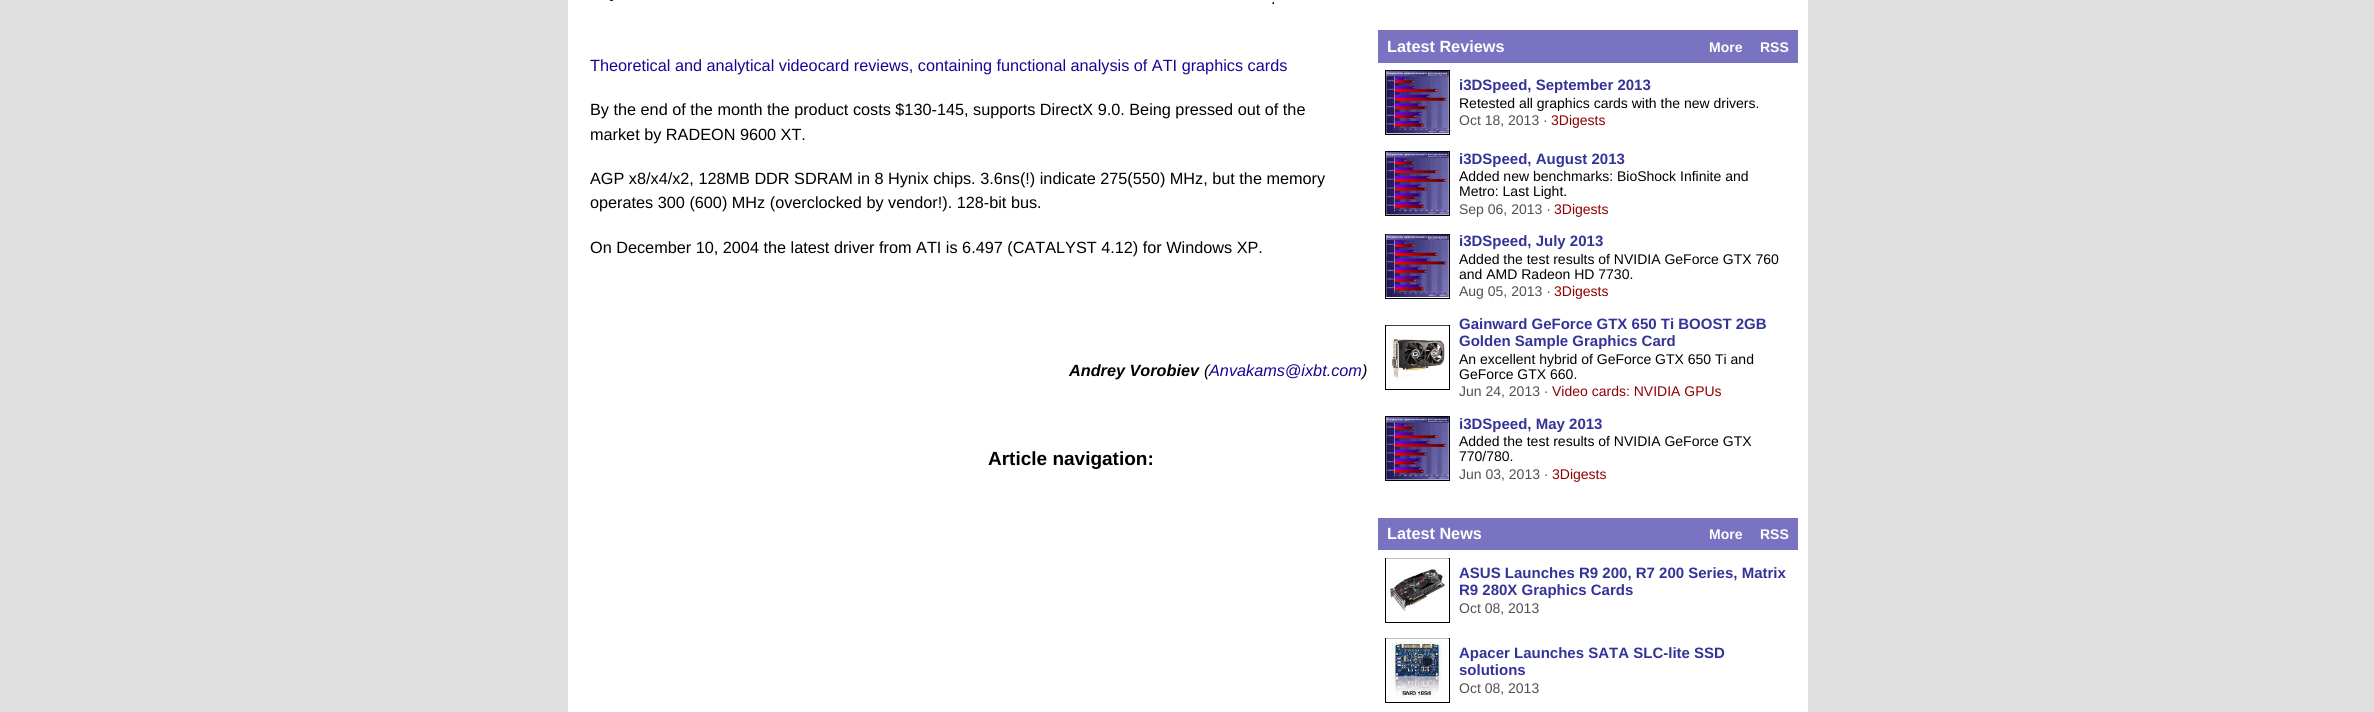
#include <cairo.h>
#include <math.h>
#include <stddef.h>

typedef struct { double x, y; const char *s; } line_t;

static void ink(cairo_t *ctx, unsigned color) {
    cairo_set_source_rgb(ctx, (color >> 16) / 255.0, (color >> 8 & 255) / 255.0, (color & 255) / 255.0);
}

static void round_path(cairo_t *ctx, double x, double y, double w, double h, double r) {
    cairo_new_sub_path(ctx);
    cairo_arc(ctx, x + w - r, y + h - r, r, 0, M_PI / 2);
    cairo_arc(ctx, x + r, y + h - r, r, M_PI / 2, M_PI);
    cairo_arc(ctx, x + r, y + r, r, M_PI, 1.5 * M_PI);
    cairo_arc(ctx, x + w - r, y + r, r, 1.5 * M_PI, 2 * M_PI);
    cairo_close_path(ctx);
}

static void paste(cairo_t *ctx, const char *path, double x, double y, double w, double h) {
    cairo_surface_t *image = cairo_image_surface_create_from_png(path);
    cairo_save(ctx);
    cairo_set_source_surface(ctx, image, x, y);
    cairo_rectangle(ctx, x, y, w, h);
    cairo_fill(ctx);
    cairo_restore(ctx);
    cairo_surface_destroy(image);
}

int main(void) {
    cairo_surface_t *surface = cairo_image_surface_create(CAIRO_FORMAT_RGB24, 2374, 712);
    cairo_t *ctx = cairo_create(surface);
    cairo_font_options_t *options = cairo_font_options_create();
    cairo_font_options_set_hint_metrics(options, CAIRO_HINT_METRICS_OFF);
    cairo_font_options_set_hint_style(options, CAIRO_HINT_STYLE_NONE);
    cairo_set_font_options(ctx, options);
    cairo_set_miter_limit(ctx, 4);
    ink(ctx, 0xE0E0E0);
    cairo_paint(ctx);
    ink(ctx, 0xFFFFFF);
    cairo_rectangle(ctx, 568, 0, 1240, 712);
    cairo_fill(ctx);
    ink(ctx, 0x000000);
    round_path(ctx, 609, -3, 5, 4, 2.5);
    cairo_fill(ctx);
    cairo_select_font_face(ctx, "Liberation Sans", CAIRO_FONT_SLANT_NORMAL, CAIRO_FONT_WEIGHT_NORMAL);
    cairo_set_font_size(ctx, 16.25);
    cairo_move_to(ctx, 1271, 4);
    cairo_show_text(ctx, ".");
    ink(ctx, 0x160693);
    cairo_move_to(ctx, 590, 71);
    cairo_show_text(ctx, "Theoretical and analytical videocard reviews, containing functional analysis of ATI graphics cards");
    ink(ctx, 0x000000);
    {
        static const line_t items[] = {
            {590, 115, "By the end of the month the product costs $130-145, supports DirectX 9.0. Being pressed out of the"},
            {590, 140, "market by RADEON 9600 XT."},
            {590, 184, "AGP x8/x4/x2, 128MB DDR SDRAM in 8 Hynix chips. 3.6ns(!) indicate 275(550) MHz, but the memory"},
            {590, 208, "operates 300 (600) MHz (overclocked by vendor!). 128-bit bus."},
            {590, 253, "On December 10, 2004 the latest driver from ATI is 6.497 (CATALYST 4.12) for Windows XP."},
        };
        for (size_t i = 0; i < sizeof items / sizeof *items; i++) {
            cairo_move_to(ctx, items[i].x, items[i].y);
            cairo_show_text(ctx, items[i].s);
        }
    }
    cairo_select_font_face(ctx, "Liberation Sans", CAIRO_FONT_SLANT_ITALIC, CAIRO_FONT_WEIGHT_BOLD);
    cairo_move_to(ctx, 1069, 376);
    cairo_show_text(ctx, "Andrey Vorobiev");
    cairo_select_font_face(ctx, "Liberation Sans", CAIRO_FONT_SLANT_ITALIC, CAIRO_FONT_WEIGHT_NORMAL);
    cairo_move_to(ctx, 1204, 376);
    cairo_show_text(ctx, "(");
    ink(ctx, 0x160693);
    cairo_move_to(ctx, 1209, 376);
    cairo_show_text(ctx, "Anvakams@ixbt.com");
    ink(ctx, 0x000000);
    cairo_move_to(ctx, 1362, 376);
    cairo_show_text(ctx, ")");
    cairo_select_font_face(ctx, "Liberation Sans", CAIRO_FONT_SLANT_NORMAL, CAIRO_FONT_WEIGHT_BOLD);
    cairo_set_font_size(ctx, 19);
    cairo_move_to(ctx, 988, 465);
    cairo_show_text(ctx, "Article navigation:");
    ink(ctx, 0x7A73C1);
    cairo_rectangle(ctx, 1378, 30, 420, 33);
    cairo_fill(ctx);
    cairo_set_font_size(ctx, 16.25);
    ink(ctx, 0xFFFFFF);
    cairo_move_to(ctx, 1387, 52);
    cairo_show_text(ctx, "Latest Reviews");
    cairo_set_font_size(ctx, 14);
    cairo_move_to(ctx, 1709, 52);
    cairo_show_text(ctx, "More");
    cairo_move_to(ctx, 1760, 52);
    cairo_show_text(ctx, "RSS");
    cairo_rectangle(ctx, 1385.5, 70.5, 64, 64);
    ink(ctx, 0x000000);
    cairo_set_line_width(ctx, 1);
    cairo_stroke(ctx);
    paste(ctx, "media/1.png", 1386, 70, 63, 64);
    cairo_set_font_size(ctx, 15);
    ink(ctx, 0x333399);
    cairo_move_to(ctx, 1459, 90);
    cairo_show_text(ctx, "i3DSpeed, September 2013");
    cairo_select_font_face(ctx, "Liberation Sans", CAIRO_FONT_SLANT_NORMAL, CAIRO_FONT_WEIGHT_NORMAL);
    cairo_set_font_size(ctx, 14);
    ink(ctx, 0x000000);
    cairo_move_to(ctx, 1459, 108);
    cairo_show_text(ctx, "Retested all graphics cards with the new drivers.");
    ink(ctx, 0x505050);
    cairo_move_to(ctx, 1459, 125);
    cairo_show_text(ctx, "Oct 18, 2013 ·");
    ink(ctx, 0x8E0000);
    cairo_move_to(ctx, 1551, 125);
    cairo_show_text(ctx, "3Digests");
    cairo_rectangle(ctx, 1385.5, 151.5, 64, 64);
    ink(ctx, 0x000000);
    cairo_stroke(ctx);
    paste(ctx, "media/2.png", 1386, 152, 63, 63);
    cairo_select_font_face(ctx, "Liberation Sans", CAIRO_FONT_SLANT_NORMAL, CAIRO_FONT_WEIGHT_BOLD);
    cairo_set_font_size(ctx, 15);
    ink(ctx, 0x333399);
    cairo_move_to(ctx, 1459, 164);
    cairo_show_text(ctx, "i3DSpeed, August 2013");
    cairo_select_font_face(ctx, "Liberation Sans", CAIRO_FONT_SLANT_NORMAL, CAIRO_FONT_WEIGHT_NORMAL);
    cairo_set_font_size(ctx, 14);
    ink(ctx, 0x000000);
    cairo_move_to(ctx, 1459, 181);
    cairo_show_text(ctx, "Added new benchmarks: BioShock Infinite and");
    cairo_move_to(ctx, 1459, 196);
    cairo_show_text(ctx, "Metro: Last Light.");
    ink(ctx, 0x505050);
    cairo_move_to(ctx, 1459, 214);
    cairo_show_text(ctx, "Sep 06, 2013 ·");
    ink(ctx, 0x8E0000);
    cairo_move_to(ctx, 1554, 214);
    cairo_show_text(ctx, "3Digests");
    cairo_rectangle(ctx, 1385.5, 234.5, 64, 64);
    ink(ctx, 0x000000);
    cairo_stroke(ctx);
    paste(ctx, "media/3.png", 1386, 234, 63, 63);
    cairo_select_font_face(ctx, "Liberation Sans", CAIRO_FONT_SLANT_NORMAL, CAIRO_FONT_WEIGHT_BOLD);
    cairo_set_font_size(ctx, 15);
    ink(ctx, 0x333399);
    cairo_move_to(ctx, 1459, 246);
    cairo_show_text(ctx, "i3DSpeed, July 2013");
    cairo_select_font_face(ctx, "Liberation Sans", CAIRO_FONT_SLANT_NORMAL, CAIRO_FONT_WEIGHT_NORMAL);
    cairo_set_font_size(ctx, 14);
    ink(ctx, 0x000000);
    cairo_move_to(ctx, 1459, 264);
    cairo_show_text(ctx, "Added the test results of NVIDIA GeForce GTX 760");
    cairo_move_to(ctx, 1459, 279);
    cairo_show_text(ctx, "and AMD Radeon HD 7730.");
    ink(ctx, 0x505050);
    cairo_move_to(ctx, 1459, 296);
    cairo_show_text(ctx, "Aug 05, 2013 ·");
    ink(ctx, 0x8E0000);
    cairo_move_to(ctx, 1554, 296);
    cairo_show_text(ctx, "3Digests");
    cairo_rectangle(ctx, 1385.5, 325.5, 64, 64);
    ink(ctx, 0x000000);
    cairo_stroke(ctx);
    paste(ctx, "media/4.png", 1386, 325, 63, 56);
    cairo_select_font_face(ctx, "Liberation Sans", CAIRO_FONT_SLANT_NORMAL, CAIRO_FONT_WEIGHT_BOLD);
    cairo_set_font_size(ctx, 15);
    ink(ctx, 0x333399);
    cairo_move_to(ctx, 1459, 329);
    cairo_show_text(ctx, "Gainward GeForce GTX 650 Ti BOOST 2GB");
    cairo_move_to(ctx, 1459, 346);
    cairo_show_text(ctx, "Golden Sample Graphics Card");
    cairo_select_font_face(ctx, "Liberation Sans", CAIRO_FONT_SLANT_NORMAL, CAIRO_FONT_WEIGHT_NORMAL);
    cairo_set_font_size(ctx, 14);
    ink(ctx, 0x000000);
    cairo_move_to(ctx, 1459, 364);
    cairo_show_text(ctx, "An excellent hybrid of GeForce GTX 650 Ti and");
    cairo_move_to(ctx, 1459, 379);
    cairo_show_text(ctx, "GeForce GTX 660.");
    ink(ctx, 0x505050);
    cairo_move_to(ctx, 1459, 396);
    cairo_show_text(ctx, "Jun 24, 2013 ·");
    ink(ctx, 0x8E0000);
    cairo_move_to(ctx, 1552, 396);
    cairo_show_text(ctx, "Video cards: NVIDIA GPUs");
    cairo_rectangle(ctx, 1385.5, 416.5, 64, 64);
    ink(ctx, 0x000000);
    cairo_stroke(ctx);
    paste(ctx, "media/2.png", 1386, 417, 63, 63);
    cairo_select_font_face(ctx, "Liberation Sans", CAIRO_FONT_SLANT_NORMAL, CAIRO_FONT_WEIGHT_BOLD);
    cairo_set_font_size(ctx, 15);
    ink(ctx, 0x333399);
    cairo_move_to(ctx, 1459, 429);
    cairo_show_text(ctx, "i3DSpeed, May 2013");
    cairo_select_font_face(ctx, "Liberation Sans", CAIRO_FONT_SLANT_NORMAL, CAIRO_FONT_WEIGHT_NORMAL);
    cairo_set_font_size(ctx, 14);
    ink(ctx, 0x000000);
    cairo_move_to(ctx, 1459, 446);
    cairo_show_text(ctx, "Added the test results of NVIDIA GeForce GTX");
    cairo_move_to(ctx, 1459, 461);
    cairo_show_text(ctx, "770/780.");
    ink(ctx, 0x505050);
    cairo_move_to(ctx, 1459, 479);
    cairo_show_text(ctx, "Jun 03, 2013 ·");
    ink(ctx, 0x8E0000);
    cairo_move_to(ctx, 1552, 479);
    cairo_show_text(ctx, "3Digests");
    ink(ctx, 0x7A73C1);
    cairo_rectangle(ctx, 1378, 518, 420, 32);
    cairo_fill(ctx);
    cairo_select_font_face(ctx, "Liberation Sans", CAIRO_FONT_SLANT_NORMAL, CAIRO_FONT_WEIGHT_BOLD);
    cairo_set_font_size(ctx, 16.25);
    ink(ctx, 0xFFFFFF);
    cairo_move_to(ctx, 1387, 539);
    cairo_show_text(ctx, "Latest News");
    cairo_set_font_size(ctx, 14);
    cairo_move_to(ctx, 1709, 539);
    cairo_show_text(ctx, "More");
    cairo_move_to(ctx, 1760, 539);
    cairo_show_text(ctx, "RSS");
    cairo_rectangle(ctx, 1385.5, 558.5, 64, 64);
    ink(ctx, 0x000000);
    cairo_stroke(ctx);
    paste(ctx, "media/5.png", 1386, 558, 63, 53);
    cairo_set_font_size(ctx, 15);
    ink(ctx, 0x333399);
    cairo_move_to(ctx, 1459, 578);
    cairo_show_text(ctx, "ASUS Launches R9 200, R7 200 Series, Matrix");
    cairo_move_to(ctx, 1459, 595);
    cairo_show_text(ctx, "R9 280X Graphics Cards");
    cairo_select_font_face(ctx, "Liberation Sans", CAIRO_FONT_SLANT_NORMAL, CAIRO_FONT_WEIGHT_NORMAL);
    cairo_set_font_size(ctx, 14);
    ink(ctx, 0x505050);
    cairo_move_to(ctx, 1459, 613);
    cairo_show_text(ctx, "Oct 08, 2013");
    cairo_rectangle(ctx, 1385.5, 638.5, 64, 64);
    ink(ctx, 0x000000);
    cairo_stroke(ctx);
    paste(ctx, "media/6.png", 1386, 638, 63, 60);
    cairo_select_font_face(ctx, "Liberation Sans", CAIRO_FONT_SLANT_NORMAL, CAIRO_FONT_WEIGHT_BOLD);
    cairo_set_font_size(ctx, 15);
    ink(ctx, 0x333399);
    cairo_move_to(ctx, 1459, 658);
    cairo_show_text(ctx, "Apacer Launches SATA SLC-lite SSD");
    cairo_move_to(ctx, 1459, 675);
    cairo_show_text(ctx, "solutions");
    cairo_select_font_face(ctx, "Liberation Sans", CAIRO_FONT_SLANT_NORMAL, CAIRO_FONT_WEIGHT_NORMAL);
    cairo_set_font_size(ctx, 14);
    ink(ctx, 0x505050);
    cairo_move_to(ctx, 1459, 693);
    cairo_show_text(ctx, "Oct 08, 2013");
    cairo_surface_write_to_png(surface, "image.png");
    cairo_font_options_destroy(options);
    cairo_destroy(ctx);
    cairo_surface_destroy(surface);
    return 0;
}
